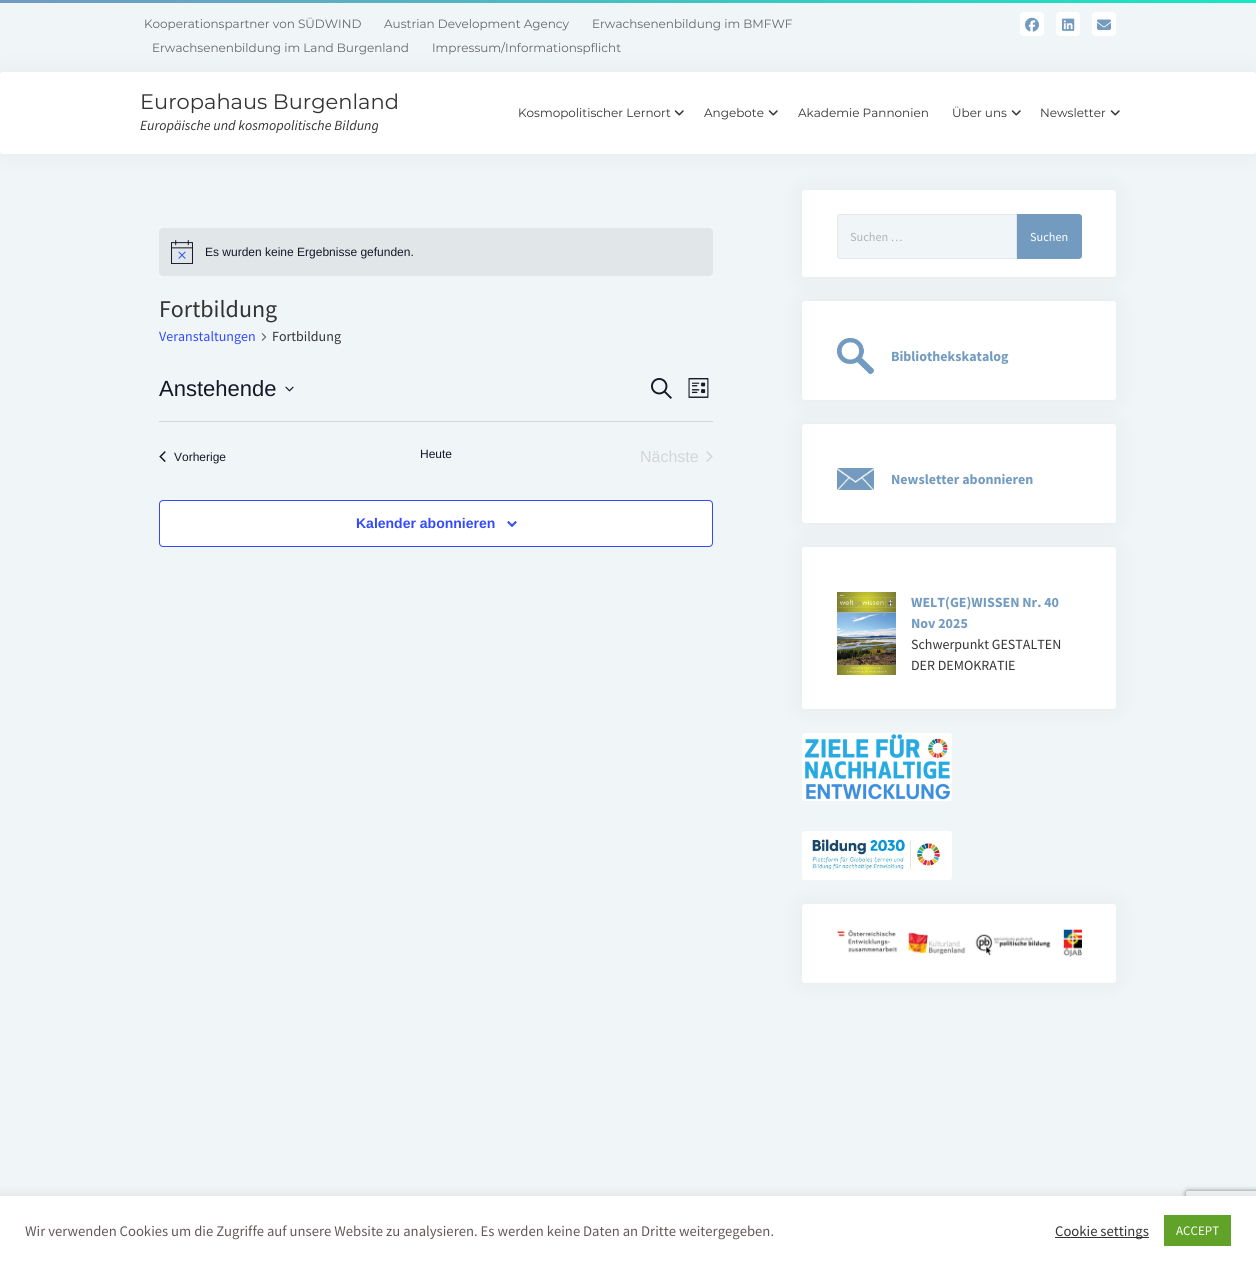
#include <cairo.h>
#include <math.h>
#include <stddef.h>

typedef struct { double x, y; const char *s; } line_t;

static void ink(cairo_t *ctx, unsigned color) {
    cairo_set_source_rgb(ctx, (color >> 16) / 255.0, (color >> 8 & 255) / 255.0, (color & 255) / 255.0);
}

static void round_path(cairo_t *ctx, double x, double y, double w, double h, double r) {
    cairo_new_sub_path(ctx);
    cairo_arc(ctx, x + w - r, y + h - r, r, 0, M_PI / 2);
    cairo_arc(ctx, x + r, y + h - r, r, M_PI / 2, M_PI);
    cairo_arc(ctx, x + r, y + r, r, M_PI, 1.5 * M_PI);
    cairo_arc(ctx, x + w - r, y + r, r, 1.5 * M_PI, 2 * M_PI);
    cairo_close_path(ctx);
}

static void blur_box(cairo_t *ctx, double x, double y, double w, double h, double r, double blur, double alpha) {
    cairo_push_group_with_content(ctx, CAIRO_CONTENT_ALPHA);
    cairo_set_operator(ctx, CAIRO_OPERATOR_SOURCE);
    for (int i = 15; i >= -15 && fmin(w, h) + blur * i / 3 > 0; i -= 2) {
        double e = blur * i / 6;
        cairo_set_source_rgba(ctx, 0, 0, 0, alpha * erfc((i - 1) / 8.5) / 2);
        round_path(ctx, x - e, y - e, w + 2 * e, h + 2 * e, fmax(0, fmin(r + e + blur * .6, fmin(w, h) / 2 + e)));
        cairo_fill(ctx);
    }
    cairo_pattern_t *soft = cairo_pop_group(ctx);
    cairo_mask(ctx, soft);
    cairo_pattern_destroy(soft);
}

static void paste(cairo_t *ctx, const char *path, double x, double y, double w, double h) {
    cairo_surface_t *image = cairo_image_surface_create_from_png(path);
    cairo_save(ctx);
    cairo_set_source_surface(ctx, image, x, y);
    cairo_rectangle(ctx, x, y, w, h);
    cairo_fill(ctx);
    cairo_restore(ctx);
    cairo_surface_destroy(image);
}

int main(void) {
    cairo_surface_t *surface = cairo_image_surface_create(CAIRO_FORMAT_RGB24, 1256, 1265);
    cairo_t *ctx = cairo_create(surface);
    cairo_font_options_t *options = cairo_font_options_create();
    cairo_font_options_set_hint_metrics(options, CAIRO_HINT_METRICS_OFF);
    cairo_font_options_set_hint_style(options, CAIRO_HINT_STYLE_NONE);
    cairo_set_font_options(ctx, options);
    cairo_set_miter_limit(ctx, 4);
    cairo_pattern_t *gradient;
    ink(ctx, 0xF0F5F8);
    cairo_paint(ctx);
    gradient = cairo_pattern_create_linear(0, 1.5, 1256, 1.5);
    cairo_pattern_add_color_stop_rgba(gradient, 0, 0.447, 0.608, 0.749, 1);
    cairo_pattern_add_color_stop_rgba(gradient, 1, 0.09, 0.902, 0.765, 1);
    cairo_set_source(ctx, gradient);
    cairo_pattern_destroy(gradient);
    cairo_rectangle(ctx, 0, 0, 1256, 3);
    cairo_fill(ctx);
    cairo_select_font_face(ctx, "Montserrat Thin", CAIRO_FONT_SLANT_NORMAL, CAIRO_FONT_WEIGHT_NORMAL);
    cairo_set_font_size(ctx, 12);
    ink(ctx, 0x666666);
    {
        static const line_t items[] = {
            {144, 28, "Kooperationspartner von SÜDWIND"},
            {384, 28, "Austrian Development Agency"},
            {592, 28, "Erwachsenenbildung im BMFWF"},
        };
        for (size_t i = 0; i < sizeof items / sizeof *items; i++) {
            cairo_move_to(ctx, items[i].x, items[i].y);
            cairo_show_text(ctx, items[i].s);
        }
    }
    ink(ctx, 0x000000);
    blur_box(ctx, 802, 190, 314, 87, 3, 12, 0.05);
    ink(ctx, 0xFFFFFF);
    round_path(ctx, 802, 190, 314, 87, 3);
    cairo_fill(ctx);
    ink(ctx, 0x000000);
    blur_box(ctx, 0, 72, 1256, 82, 3, 12, 0.05);
    ink(ctx, 0x666666);
    cairo_move_to(ctx, 152, 52);
    cairo_show_text(ctx, "Erwachsenenbildung im Land Burgenland");
    cairo_move_to(ctx, 432, 52);
    cairo_show_text(ctx, "Impressum/Informationspflicht");
    ink(ctx, 0xFFFFFF);
    round_path(ctx, 1020, 12, 24, 24, 4);
    cairo_fill(ctx);
    paste(ctx, "media/1.png", 1025, 17, 14, 15);
    round_path(ctx, 1056, 12, 24, 24, 4);
    cairo_fill(ctx);
    paste(ctx, "media/2.png", 1062, 18, 13, 13);
    round_path(ctx, 1092, 12, 24, 24, 4);
    cairo_fill(ctx);
    paste(ctx, "media/3.png", 1097, 19, 14, 11);
    round_path(ctx, 0, 72, 1256, 82, 3);
    cairo_fill(ctx);
    cairo_set_font_size(ctx, 21);
    ink(ctx, 0x333333);
    cairo_move_to(ctx, 140, 109);
    cairo_show_text(ctx, "Europahaus Burgenland");
    cairo_select_font_face(ctx, "Source Sans Pro", CAIRO_FONT_SLANT_ITALIC, CAIRO_FONT_WEIGHT_NORMAL);
    cairo_set_font_size(ctx, 14);
    cairo_move_to(ctx, 140, 130);
    cairo_show_text(ctx, "Europäische und kosmopolitische Bildung");
    cairo_select_font_face(ctx, "Montserrat Thin", CAIRO_FONT_SLANT_NORMAL, CAIRO_FONT_WEIGHT_NORMAL);
    cairo_set_font_size(ctx, 12);
    cairo_move_to(ctx, 518, 117);
    cairo_show_text(ctx, "Kosmopolitischer Lernort");
    paste(ctx, "media/4.png", 674, 110, 10, 6);
    cairo_move_to(ctx, 704, 117);
    cairo_show_text(ctx, "Angebote");
    paste(ctx, "media/4.png", 768, 110, 10, 6);
    cairo_move_to(ctx, 798, 117);
    cairo_show_text(ctx, "Akademie Pannonien");
    cairo_move_to(ctx, 952, 117);
    cairo_show_text(ctx, "Über uns");
    paste(ctx, "media/4.png", 1011, 110, 10, 6);
    cairo_move_to(ctx, 1040, 117);
    cairo_show_text(ctx, "Newsletter");
    paste(ctx, "media/4.png", 1110, 110, 10, 6);
    ink(ctx, 0xE1E6E9);
    round_path(ctx, 159, 228, 554, 48, 4);
    cairo_fill(ctx);
    paste(ctx, "media/5.png", 171, 240, 22, 24);
    cairo_select_font_face(ctx, "Liberation Sans", CAIRO_FONT_SLANT_NORMAL, CAIRO_FONT_WEIGHT_NORMAL);
    ink(ctx, 0x141827);
    cairo_move_to(ctx, 205, 256);
    cairo_show_text(ctx, "Es wurden keine Ergebnisse gefunden.");
    cairo_select_font_face(ctx, "Source Sans Pro", CAIRO_FONT_SLANT_NORMAL, CAIRO_FONT_WEIGHT_NORMAL);
    cairo_set_font_size(ctx, 24);
    ink(ctx, 0x333333);
    cairo_move_to(ctx, 159, 317);
    cairo_show_text(ctx, "Fortbildung");
    cairo_set_font_size(ctx, 14);
    ink(ctx, 0x334AFF);
    cairo_move_to(ctx, 159, 341);
    cairo_show_text(ctx, "Veranstaltungen");
    paste(ctx, "media/6.png", 261, 333, 6, 8);
    ink(ctx, 0x333333);
    cairo_move_to(ctx, 272, 341);
    cairo_show_text(ctx, "Fortbildung");
    cairo_select_font_face(ctx, "Liberation Sans", CAIRO_FONT_SLANT_NORMAL, CAIRO_FONT_WEIGHT_NORMAL);
    cairo_set_font_size(ctx, 22);
    ink(ctx, 0x141827);
    cairo_move_to(ctx, 159, 396);
    cairo_show_text(ctx, "Anstehende");
    paste(ctx, "media/7.png", 285, 386, 9, 6);
    paste(ctx, "media/8.png", 651, 378, 21, 21);
    paste(ctx, "media/9.png", 688, 378, 21, 20);
    ink(ctx, 0xD5D5D5);
    cairo_rectangle(ctx, 159, 421, 554, 1);
    cairo_fill(ctx);
    paste(ctx, "media/10.png", 159, 451, 7, 11);
    cairo_set_font_size(ctx, 12);
    ink(ctx, 0x141827);
    cairo_move_to(ctx, 174, 461);
    cairo_show_text(ctx, "Vorherige");
    cairo_move_to(ctx, 420, 458);
    cairo_show_text(ctx, "Heute");
    cairo_set_font_size(ctx, 16);
    ink(ctx, 0xD5D5D5);
    cairo_move_to(ctx, 640, 462);
    cairo_show_text(ctx, "Nächste");
    paste(ctx, "media/11.png", 706, 451, 7, 11);
    ink(ctx, 0xFFFFFF);
    round_path(ctx, 159.5, 500.5, 553, 46, 3.5);
    cairo_fill_preserve(ctx);
    ink(ctx, 0x334AFF);
    cairo_set_line_width(ctx, 1);
    cairo_stroke(ctx);
    cairo_select_font_face(ctx, "Liberation Sans", CAIRO_FONT_SLANT_NORMAL, CAIRO_FONT_WEIGHT_BOLD);
    cairo_set_font_size(ctx, 14);
    cairo_move_to(ctx, 356, 528);
    cairo_show_text(ctx, "Kalender abonnieren");
    paste(ctx, "media/12.png", 507, 521, 10, 6);
    ink(ctx, 0xF0F5F8);
    cairo_new_path(ctx);
    cairo_move_to(ctx, 840, 214.5);
    cairo_line_to(ctx, 1016.5, 214.5);
    cairo_line_to(ctx, 1016.5, 258.5);
    cairo_line_to(ctx, 840, 258.5);
    cairo_curve_to(ctx, 838.5, 258.5, 837.5, 257.5, 837.5, 256);
    cairo_line_to(ctx, 837.5, 217);
    cairo_curve_to(ctx, 837.5, 215.5, 838.5, 214.5, 840, 214.5);
    cairo_close_path(ctx);
    cairo_fill_preserve(ctx);
    ink(ctx, 0xE4E8EB);
    cairo_stroke(ctx);
    cairo_select_font_face(ctx, "Source Sans Pro", CAIRO_FONT_SLANT_NORMAL, CAIRO_FONT_WEIGHT_NORMAL);
    cairo_set_font_size(ctx, 12.25);
    ink(ctx, 0xB3B3B3);
    cairo_move_to(ctx, 850, 241);
    cairo_show_text(ctx, "Suchen …");
    ink(ctx, 0x729BBF);
    cairo_new_path(ctx);
    cairo_move_to(ctx, 1017, 214);
    cairo_line_to(ctx, 1079, 214);
    cairo_curve_to(ctx, 1080.5, 214, 1082, 215.5, 1082, 217);
    cairo_line_to(ctx, 1082, 256);
    cairo_curve_to(ctx, 1082, 257.5, 1080.5, 259, 1079, 259);
    cairo_line_to(ctx, 1017, 259);
    cairo_close_path(ctx);
    cairo_fill(ctx);
    ink(ctx, 0xFFFFFF);
    cairo_move_to(ctx, 1030, 241);
    cairo_show_text(ctx, "Suchen");
    ink(ctx, 0x000000);
    blur_box(ctx, 802, 301, 314, 99, 3, 12, 0.05);
    ink(ctx, 0xFFFFFF);
    round_path(ctx, 802, 301, 314, 99, 3);
    cairo_fill(ctx);
    paste(ctx, "media/13.png", 837, 338, 37, 36);
    cairo_select_font_face(ctx, "Source Sans Pro", CAIRO_FONT_SLANT_NORMAL, CAIRO_FONT_WEIGHT_BOLD);
    cairo_set_font_size(ctx, 14);
    ink(ctx, 0x729BBF);
    cairo_move_to(ctx, 891, 361);
    cairo_show_text(ctx, "Bibliothekskatalog");
    ink(ctx, 0x000000);
    blur_box(ctx, 802, 424, 314, 99, 3, 12, 0.05);
    ink(ctx, 0xFFFFFF);
    round_path(ctx, 802, 424, 314, 99, 3);
    cairo_fill(ctx);
    paste(ctx, "media/14.png", 837, 468, 37, 22);
    ink(ctx, 0x729BBF);
    cairo_move_to(ctx, 891, 484);
    cairo_show_text(ctx, "Newsletter abonnieren");
    ink(ctx, 0x000000);
    blur_box(ctx, 802, 547, 314, 162, 3, 12, 0.05);
    ink(ctx, 0xFFFFFF);
    round_path(ctx, 802, 547, 314, 162, 3);
    cairo_fill(ctx);
    paste(ctx, "media/15.png", 837, 592, 59, 83);
    ink(ctx, 0x729BBF);
    cairo_move_to(ctx, 911, 607);
    cairo_show_text(ctx, "WELT(GE)WISSEN Nr. 40");
    cairo_move_to(ctx, 911, 628);
    cairo_show_text(ctx, "Nov 2025");
    cairo_select_font_face(ctx, "Source Sans Pro", CAIRO_FONT_SLANT_NORMAL, CAIRO_FONT_WEIGHT_NORMAL);
    ink(ctx, 0x333333);
    cairo_move_to(ctx, 911, 649);
    cairo_show_text(ctx, "Schwerpunkt GESTALTEN");
    cairo_move_to(ctx, 911, 670);
    cairo_show_text(ctx, "DER DEMOKRATIE");
    paste(ctx, "media/16.png", 802, 733, 150, 68);
    ink(ctx, 0x000000);
    blur_box(ctx, 802, 904, 314, 79, 3, 12, 0.05);
    paste(ctx, "media/17.png", 802, 831, 150, 49);
    ink(ctx, 0xFFFFFF);
    round_path(ctx, 802, 904, 314, 79, 3);
    cairo_fill(ctx);
    paste(ctx, "media/18.png", 837, 928, 245, 29);
    cairo_save(ctx);
    cairo_set_fill_rule(ctx, CAIRO_FILL_RULE_EVEN_ODD);
    cairo_new_path(ctx);
    cairo_move_to(ctx, 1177, 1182);
    cairo_line_to(ctx, 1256, 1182);
    cairo_line_to(ctx, 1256, 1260);
    cairo_line_to(ctx, 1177, 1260);
    cairo_close_path(ctx);
    cairo_move_to(ctx, 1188, 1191);
    cairo_line_to(ctx, 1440, 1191);
    cairo_curve_to(ctx, 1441, 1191, 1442, 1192, 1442, 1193);
    cairo_line_to(ctx, 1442, 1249);
    cairo_curve_to(ctx, 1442, 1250, 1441, 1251, 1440, 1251);
    cairo_line_to(ctx, 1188, 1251);
    cairo_curve_to(ctx, 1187, 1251, 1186, 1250, 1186, 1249);
    cairo_line_to(ctx, 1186, 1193);
    cairo_curve_to(ctx, 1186, 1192, 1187, 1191, 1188, 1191);
    cairo_close_path(ctx);
    cairo_clip(ctx);
    ink(ctx, 0x808080);
    blur_box(ctx, 1186, 1191, 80, 60, 2, 2.5, 1);
    cairo_restore(ctx);
    ink(ctx, 0xACABAB);
    blur_box(ctx, 0, 1195, 1256, 69, 0, 5, 0.3);
    ink(ctx, 0xFFFFFF);
    cairo_rectangle(ctx, 0, 1196, 1256, 69);
    cairo_fill(ctx);
    cairo_set_font_size(ctx, 14.67);
    ink(ctx, 0x635858);
    cairo_move_to(ctx, 25, 1236);
    cairo_show_text(ctx, "Wir verwenden Cookies um die Zugriffe auf unsere Website zu analysieren. Es werden keine Daten an Dritte weitergegeben.");
    ink(ctx, 0x333333);
    cairo_rectangle(ctx, 1055, 1237, 94, 1);
    cairo_fill(ctx);
    cairo_move_to(ctx, 1055, 1236);
    cairo_show_text(ctx, "Cookie settings");
    ink(ctx, 0x61A229);
    cairo_rectangle(ctx, 1164, 1215, 67, 31);
    cairo_fill(ctx);
    cairo_set_font_size(ctx, 13);
    ink(ctx, 0xFFFFFF);
    cairo_move_to(ctx, 1176, 1235);
    cairo_show_text(ctx, "ACCEPT");
    cairo_surface_write_to_png(surface, "image.png");
    cairo_font_options_destroy(options);
    cairo_destroy(ctx);
    cairo_surface_destroy(surface);
    return 0;
}
